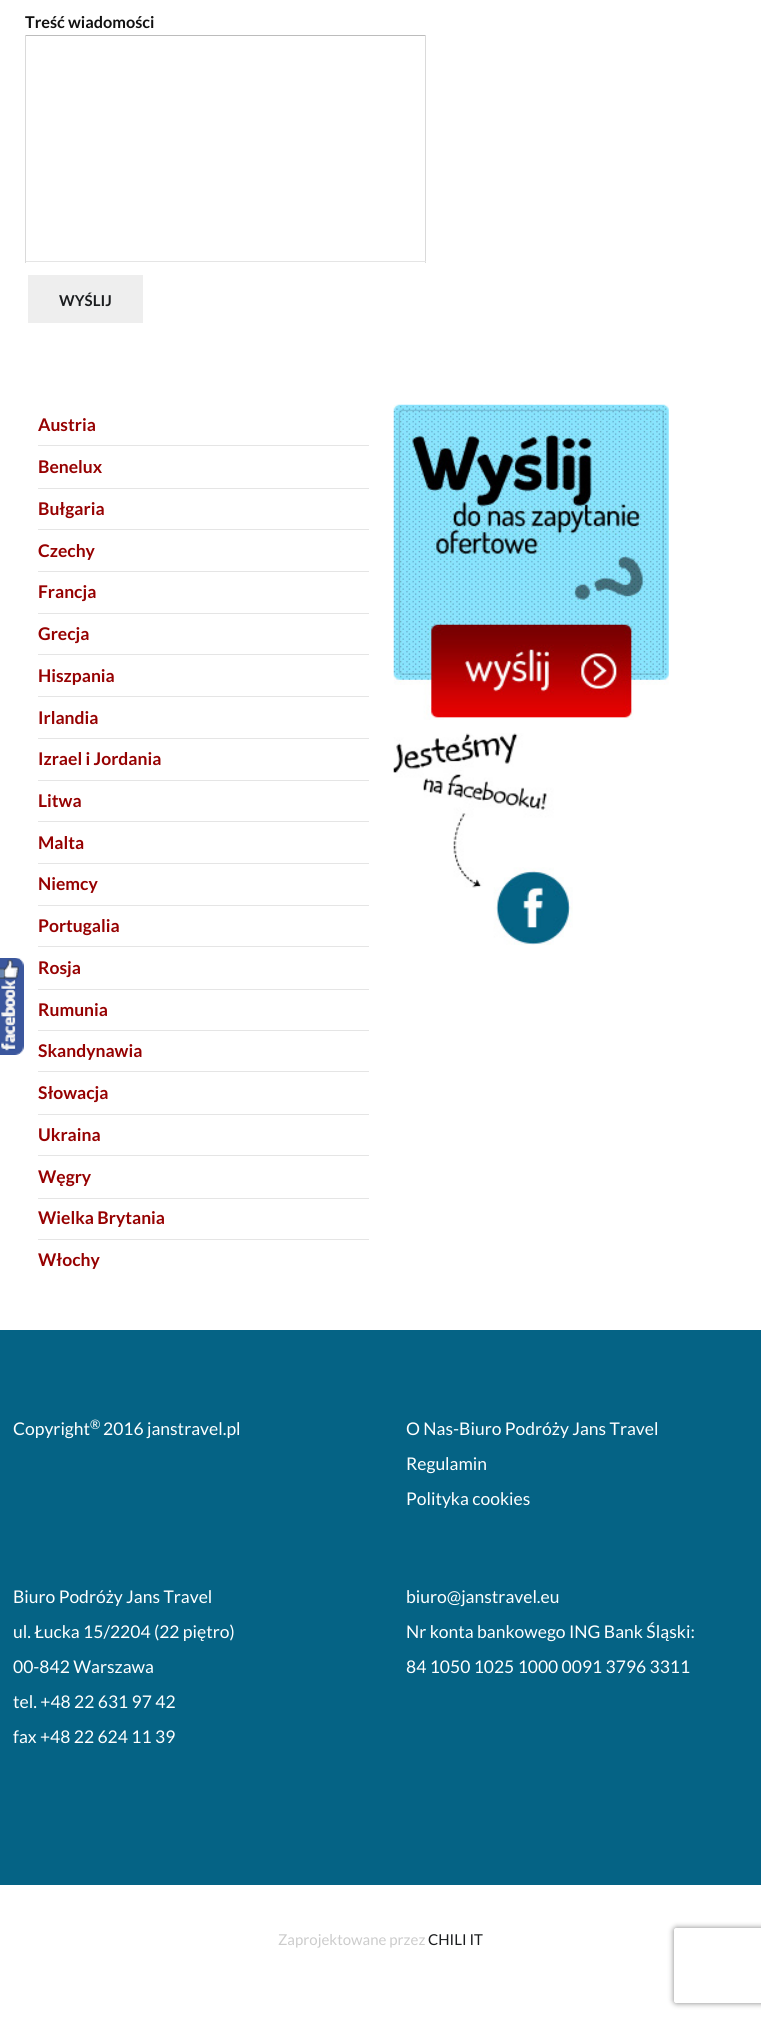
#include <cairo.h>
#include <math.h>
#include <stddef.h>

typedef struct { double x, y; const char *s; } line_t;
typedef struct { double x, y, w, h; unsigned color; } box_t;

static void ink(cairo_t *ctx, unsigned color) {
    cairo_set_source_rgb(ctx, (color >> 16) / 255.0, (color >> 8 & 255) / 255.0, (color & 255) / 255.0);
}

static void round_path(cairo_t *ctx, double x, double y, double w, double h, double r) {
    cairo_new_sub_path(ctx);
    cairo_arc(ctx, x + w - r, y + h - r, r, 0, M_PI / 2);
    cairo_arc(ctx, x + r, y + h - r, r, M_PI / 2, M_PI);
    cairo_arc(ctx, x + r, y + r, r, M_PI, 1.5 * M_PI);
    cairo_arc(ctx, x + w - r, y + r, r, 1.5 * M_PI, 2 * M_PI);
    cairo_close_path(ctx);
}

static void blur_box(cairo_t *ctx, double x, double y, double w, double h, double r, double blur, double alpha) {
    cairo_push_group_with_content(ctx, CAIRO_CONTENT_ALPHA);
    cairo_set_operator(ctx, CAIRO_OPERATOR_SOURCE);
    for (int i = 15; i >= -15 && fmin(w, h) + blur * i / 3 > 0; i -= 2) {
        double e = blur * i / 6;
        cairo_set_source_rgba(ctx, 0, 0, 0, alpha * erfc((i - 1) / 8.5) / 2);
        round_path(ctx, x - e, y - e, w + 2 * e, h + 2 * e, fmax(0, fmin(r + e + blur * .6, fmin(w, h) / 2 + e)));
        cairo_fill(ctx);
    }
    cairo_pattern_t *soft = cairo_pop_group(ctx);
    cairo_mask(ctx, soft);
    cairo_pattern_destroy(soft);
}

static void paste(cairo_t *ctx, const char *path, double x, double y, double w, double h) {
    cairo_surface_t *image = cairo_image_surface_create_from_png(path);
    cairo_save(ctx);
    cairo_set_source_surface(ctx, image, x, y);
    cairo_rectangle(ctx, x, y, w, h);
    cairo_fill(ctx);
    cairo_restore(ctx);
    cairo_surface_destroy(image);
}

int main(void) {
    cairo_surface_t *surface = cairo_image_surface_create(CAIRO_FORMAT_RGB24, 761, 2020);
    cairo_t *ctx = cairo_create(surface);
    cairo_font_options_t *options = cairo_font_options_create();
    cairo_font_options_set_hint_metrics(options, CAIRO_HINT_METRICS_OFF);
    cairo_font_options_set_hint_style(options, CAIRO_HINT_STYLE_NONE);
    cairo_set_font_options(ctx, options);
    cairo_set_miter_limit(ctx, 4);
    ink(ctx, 0xFFFFFF);
    cairo_paint(ctx);
    cairo_select_font_face(ctx, "Lato", CAIRO_FONT_SLANT_NORMAL, CAIRO_FONT_WEIGHT_BOLD);
    cairo_set_font_size(ctx, 16.25);
    ink(ctx, 0x111111);
    cairo_move_to(ctx, 25, 28);
    cairo_show_text(ctx, "Treść wiadomości");
    {
        static const box_t items[] = {
            {25, 35, 401, 1, 0xBCBCBC},
            {425, 35, 1, 228, 0xDADADA},
            {25, 261, 401, 1, 0xE5E5E5},
            {25, 35, 1, 228, 0xDADADA},
            {28, 275, 115, 48, 0xEEEEEE},
        };
        for (size_t i = 0; i < sizeof items / sizeof *items; i++) {
            ink(ctx, items[i].color);
            cairo_rectangle(ctx, items[i].x, items[i].y, items[i].w, items[i].h);
            cairo_fill(ctx);
        }
    }
    cairo_set_font_size(ctx, 15);
    ink(ctx, 0x1B1D1F);
    cairo_move_to(ctx, 59, 306);
    cairo_show_text(ctx, "WYŚLIJ");
    cairo_set_font_size(ctx, 17.5);
    ink(ctx, 0x960101);
    cairo_move_to(ctx, 38, 431);
    cairo_show_text(ctx, "Austria");
    ink(ctx, 0xE5E5E5);
    cairo_rectangle(ctx, 38, 445, 331, 1);
    cairo_fill(ctx);
    ink(ctx, 0x960101);
    cairo_move_to(ctx, 38, 473);
    cairo_show_text(ctx, "Benelux");
    ink(ctx, 0xE5E5E5);
    cairo_rectangle(ctx, 38, 488, 331, 1);
    cairo_fill(ctx);
    ink(ctx, 0x960101);
    cairo_move_to(ctx, 38, 515);
    cairo_show_text(ctx, "Bułgaria");
    ink(ctx, 0xE5E5E5);
    cairo_rectangle(ctx, 38, 529, 331, 1);
    cairo_fill(ctx);
    ink(ctx, 0x960101);
    cairo_move_to(ctx, 38, 557);
    cairo_show_text(ctx, "Czechy");
    ink(ctx, 0xE5E5E5);
    cairo_rectangle(ctx, 38, 571, 331, 1);
    cairo_fill(ctx);
    ink(ctx, 0x960101);
    cairo_move_to(ctx, 38, 598);
    cairo_show_text(ctx, "Francja");
    ink(ctx, 0xE5E5E5);
    cairo_rectangle(ctx, 38, 613, 331, 1);
    cairo_fill(ctx);
    ink(ctx, 0x960101);
    cairo_move_to(ctx, 38, 640);
    cairo_show_text(ctx, "Grecja");
    ink(ctx, 0xE5E5E5);
    cairo_rectangle(ctx, 38, 654, 331, 1);
    cairo_fill(ctx);
    ink(ctx, 0x960101);
    cairo_move_to(ctx, 38, 682);
    cairo_show_text(ctx, "Hiszpania");
    ink(ctx, 0xE5E5E5);
    cairo_rectangle(ctx, 38, 696, 331, 1);
    cairo_fill(ctx);
    ink(ctx, 0x960101);
    cairo_move_to(ctx, 38, 724);
    cairo_show_text(ctx, "Irlandia");
    ink(ctx, 0xE5E5E5);
    cairo_rectangle(ctx, 38, 738, 331, 1);
    cairo_fill(ctx);
    ink(ctx, 0x960101);
    cairo_move_to(ctx, 38, 765);
    cairo_show_text(ctx, "Izrael i Jordania");
    ink(ctx, 0xE5E5E5);
    cairo_rectangle(ctx, 38, 780, 331, 1);
    cairo_fill(ctx);
    ink(ctx, 0x960101);
    cairo_move_to(ctx, 38, 807);
    cairo_show_text(ctx, "Litwa");
    ink(ctx, 0xE5E5E5);
    cairo_rectangle(ctx, 38, 821, 331, 1);
    cairo_fill(ctx);
    ink(ctx, 0x960101);
    cairo_move_to(ctx, 38, 849);
    cairo_show_text(ctx, "Malta");
    ink(ctx, 0xE5E5E5);
    cairo_rectangle(ctx, 38, 863, 331, 1);
    cairo_fill(ctx);
    ink(ctx, 0x960101);
    cairo_move_to(ctx, 38, 890);
    cairo_show_text(ctx, "Niemcy");
    ink(ctx, 0xE5E5E5);
    cairo_rectangle(ctx, 38, 905, 331, 1);
    cairo_fill(ctx);
    ink(ctx, 0x960101);
    cairo_move_to(ctx, 38, 932);
    cairo_show_text(ctx, "Portugalia");
    ink(ctx, 0xE5E5E5);
    cairo_rectangle(ctx, 38, 946, 331, 1);
    cairo_fill(ctx);
    ink(ctx, 0x960101);
    cairo_move_to(ctx, 38, 974);
    cairo_show_text(ctx, "Rosja");
    ink(ctx, 0xE5E5E5);
    cairo_rectangle(ctx, 38, 989, 331, 1);
    cairo_fill(ctx);
    ink(ctx, 0x960101);
    cairo_move_to(ctx, 38, 1016);
    cairo_show_text(ctx, "Rumunia");
    ink(ctx, 0xE5E5E5);
    cairo_rectangle(ctx, 38, 1030, 331, 1);
    cairo_fill(ctx);
    ink(ctx, 0x960101);
    cairo_move_to(ctx, 38, 1057);
    cairo_show_text(ctx, "Skandynawia");
    ink(ctx, 0xE5E5E5);
    cairo_rectangle(ctx, 38, 1071, 331, 1);
    cairo_fill(ctx);
    ink(ctx, 0x960101);
    cairo_move_to(ctx, 38, 1099);
    cairo_show_text(ctx, "Słowacja");
    ink(ctx, 0xE5E5E5);
    cairo_rectangle(ctx, 38, 1114, 331, 1);
    cairo_fill(ctx);
    ink(ctx, 0x960101);
    cairo_move_to(ctx, 38, 1141);
    cairo_show_text(ctx, "Ukraina");
    ink(ctx, 0xE5E5E5);
    cairo_rectangle(ctx, 38, 1155, 331, 1);
    cairo_fill(ctx);
    ink(ctx, 0x960101);
    cairo_move_to(ctx, 38, 1183);
    cairo_show_text(ctx, "Węgry");
    ink(ctx, 0xE5E5E5);
    cairo_rectangle(ctx, 38, 1198, 331, 1);
    cairo_fill(ctx);
    ink(ctx, 0x960101);
    cairo_move_to(ctx, 38, 1224);
    cairo_show_text(ctx, "Wielka Brytania");
    ink(ctx, 0xE5E5E5);
    cairo_rectangle(ctx, 38, 1239, 331, 1);
    cairo_fill(ctx);
    ink(ctx, 0x960101);
    cairo_move_to(ctx, 38, 1266);
    cairo_show_text(ctx, "Włochy");
    paste(ctx, "media/1.png", 393, 404, 276, 316);
    paste(ctx, "media/2.png", 393, 733, 180, 212);
    ink(ctx, 0x056385);
    cairo_rectangle(ctx, 0, 1330, 761, 555);
    cairo_fill(ctx);
    cairo_select_font_face(ctx, "Lato", CAIRO_FONT_SLANT_NORMAL, CAIRO_FONT_WEIGHT_NORMAL);
    ink(ctx, 0xFFFFFF);
    cairo_move_to(ctx, 13, 1435);
    cairo_show_text(ctx, "Copyright");
    cairo_set_font_size(ctx, 13);
    cairo_move_to(ctx, 90, 1429);
    cairo_show_text(ctx, "®");
    cairo_set_font_size(ctx, 17.5);
    {
        static const line_t items[] = {
            {103, 1435, "2016 janstravel.pl"},
            {406, 1435, "O Nas-Biuro Podróży Jans Travel"},
            {406, 1470, "Regulamin"},
            {406, 1505, "Polityka cookies"},
            {13, 1603, "Biuro Podróży Jans Travel"},
            {13, 1638, "ul. Łucka 15/2204 (22 piętro)"},
            {13, 1673, "00-842 Warszawa"},
            {13, 1708, "tel. +48 22 631 97 42"},
            {13, 1743, "fax +48 22 624 11 39"},
            {406, 1603, "biuro@janstravel.eu"},
            {406, 1638, "Nr konta bankowego ING Bank Śląski:"},
            {406, 1673, "84 1050 1025 1000 0091 3796 3311"},
        };
        for (size_t i = 0; i < sizeof items / sizeof *items; i++) {
            cairo_move_to(ctx, items[i].x, items[i].y);
            cairo_show_text(ctx, items[i].s);
        }
    }
    paste(ctx, "media/3.png", 0, 958, 24, 97);
    cairo_set_font_size(ctx, 15);
    ink(ctx, 0xCCCCCC);
    cairo_move_to(ctx, 278, 1945);
    cairo_show_text(ctx, "Zaprojektowane przez");
    ink(ctx, 0x1B1D1F);
    cairo_move_to(ctx, 428, 1945);
    cairo_show_text(ctx, "CHILI IT");
    cairo_save(ctx);
    cairo_set_fill_rule(ctx, CAIRO_FILL_RULE_EVEN_ODD);
    cairo_new_path(ctx);
    cairo_move_to(ctx, 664, 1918);
    cairo_line_to(ctx, 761, 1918);
    cairo_line_to(ctx, 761, 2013);
    cairo_line_to(ctx, 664, 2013);
    cairo_close_path(ctx);
    cairo_move_to(ctx, 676.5, 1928);
    cairo_line_to(ctx, 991.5, 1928);
    cairo_curve_to(ctx, 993, 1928, 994, 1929, 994, 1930.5);
    cairo_line_to(ctx, 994, 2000.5);
    cairo_curve_to(ctx, 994, 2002, 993, 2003, 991.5, 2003);
    cairo_line_to(ctx, 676.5, 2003);
    cairo_curve_to(ctx, 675, 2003, 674, 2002, 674, 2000.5);
    cairo_line_to(ctx, 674, 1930.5);
    cairo_curve_to(ctx, 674, 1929, 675, 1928, 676.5, 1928);
    cairo_close_path(ctx);
    cairo_clip(ctx);
    ink(ctx, 0x808080);
    blur_box(ctx, 674, 1928, 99, 75, 2.5, 3, 1);
    cairo_restore(ctx);
    cairo_surface_write_to_png(surface, "image.png");
    cairo_font_options_destroy(options);
    cairo_destroy(ctx);
    cairo_surface_destroy(surface);
    return 0;
}
